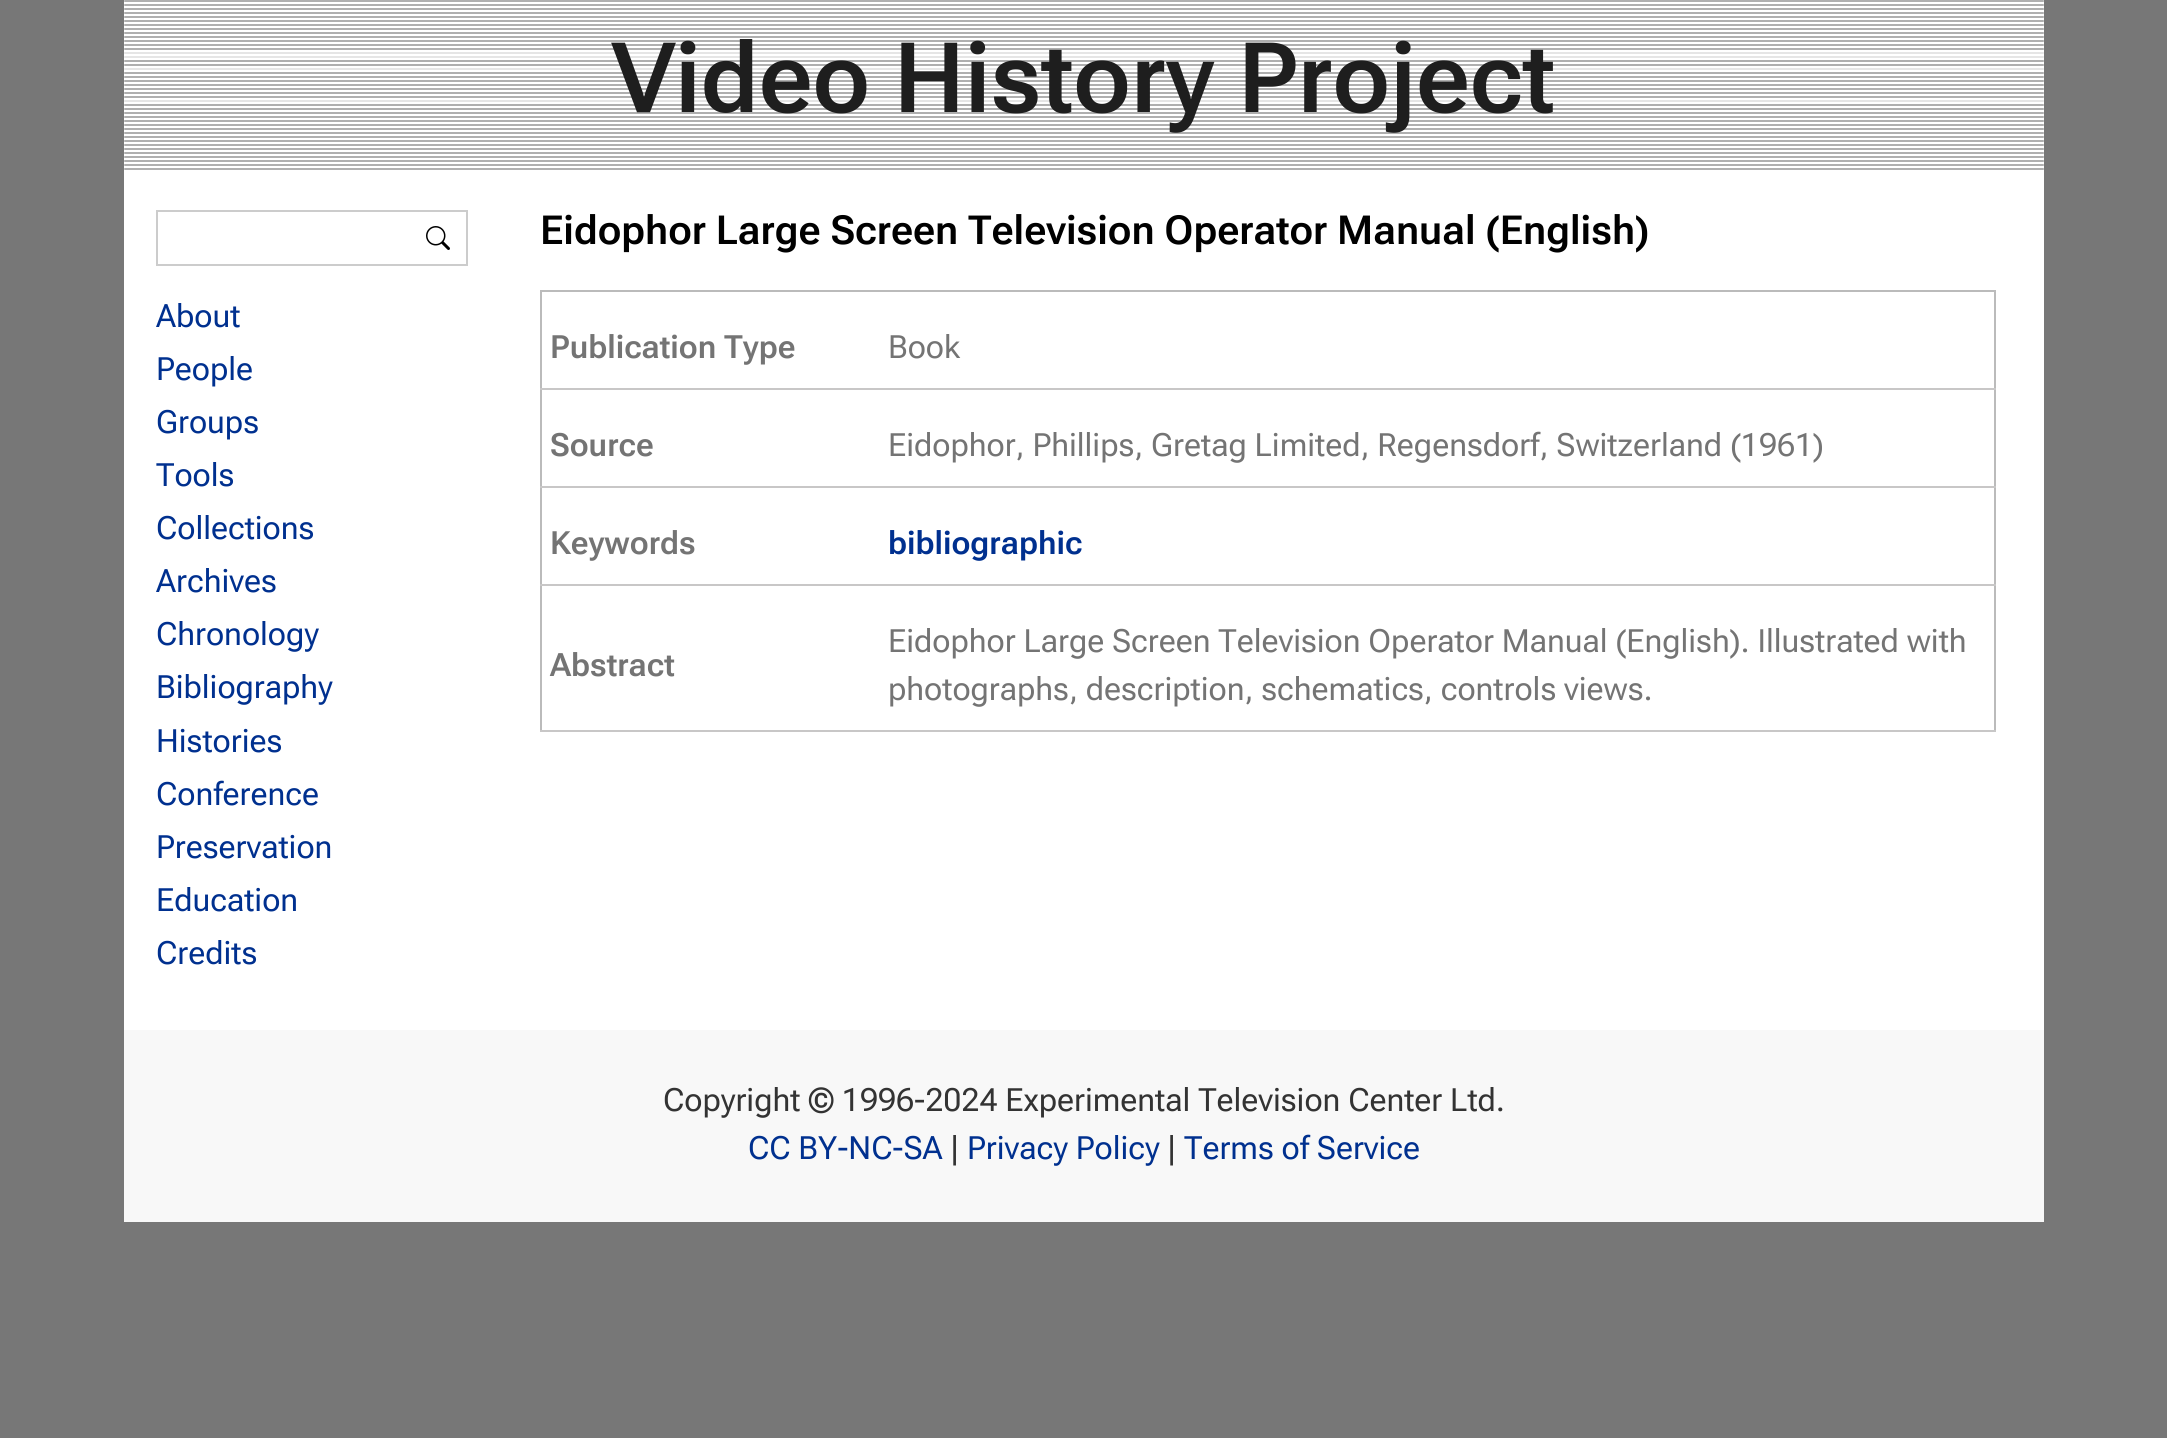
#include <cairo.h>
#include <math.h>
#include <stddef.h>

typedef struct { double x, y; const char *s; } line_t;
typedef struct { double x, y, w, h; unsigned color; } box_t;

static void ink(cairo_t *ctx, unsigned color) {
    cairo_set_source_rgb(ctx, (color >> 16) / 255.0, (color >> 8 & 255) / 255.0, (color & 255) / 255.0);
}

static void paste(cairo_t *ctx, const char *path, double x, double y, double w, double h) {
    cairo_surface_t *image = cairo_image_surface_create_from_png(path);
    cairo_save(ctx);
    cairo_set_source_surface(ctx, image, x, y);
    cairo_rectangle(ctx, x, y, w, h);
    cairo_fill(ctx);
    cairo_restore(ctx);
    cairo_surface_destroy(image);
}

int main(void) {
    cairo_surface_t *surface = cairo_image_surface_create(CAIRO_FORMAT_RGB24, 2167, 1438);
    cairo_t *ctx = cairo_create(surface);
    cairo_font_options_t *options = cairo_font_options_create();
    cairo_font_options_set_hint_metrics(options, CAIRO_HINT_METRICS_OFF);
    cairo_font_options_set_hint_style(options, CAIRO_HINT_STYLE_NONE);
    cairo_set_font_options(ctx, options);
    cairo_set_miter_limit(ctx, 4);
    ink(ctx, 0x777777);
    cairo_paint(ctx);
    ink(ctx, 0xFFFFFF);
    cairo_rectangle(ctx, 124, 0, 1920, 1030);
    cairo_fill(ctx);
    paste(ctx, "media/1.png", 124, 0, 1920, 170);
    cairo_select_font_face(ctx, "Roboto Flex SemiBold", CAIRO_FONT_SLANT_NORMAL, CAIRO_FONT_WEIGHT_NORMAL);
    cairo_set_font_size(ctx, 97.5);
    ink(ctx, 0x1E1E1E);
    cairo_move_to(ctx, 612, 112);
    cairo_show_text(ctx, "Video History Project");
    paste(ctx, "media/2.png", 426, 226, 24, 24);
    cairo_rectangle(ctx, 157, 211, 310, 54);
    ink(ctx, 0xCCCCCC);
    cairo_stroke(ctx);
    cairo_select_font_face(ctx, "Roboto Flex", CAIRO_FONT_SLANT_NORMAL, CAIRO_FONT_WEIGHT_NORMAL);
    cairo_set_font_size(ctx, 32);
    ink(ctx, 0x00308F);
    {
        static const line_t items[] = {
            {156, 327, "About"},
            {156, 380, "People"},
            {156, 433, "Groups"},
            {156, 486, "Tools"},
            {156, 539, "Collections"},
            {156, 592, "Archives"},
            {156, 645, "Chronology"},
            {156, 698, "Bibliography"},
            {156, 752, "Histories"},
            {156, 805, "Conference"},
            {156, 858, "Preservation"},
            {156, 911, "Education"},
            {156, 964, "Credits"},
        };
        for (size_t i = 0; i < sizeof items / sizeof *items; i++) {
            cairo_move_to(ctx, items[i].x, items[i].y);
            cairo_show_text(ctx, items[i].s);
        }
    }
    cairo_select_font_face(ctx, "Roboto Flex SemiBold", CAIRO_FONT_SLANT_NORMAL, CAIRO_FONT_WEIGHT_NORMAL);
    cairo_set_font_size(ctx, 40);
    ink(ctx, 0x000000);
    cairo_move_to(ctx, 540, 244);
    cairo_show_text(ctx, "Eidophor Large Screen Television Operator Manual (English)");
    {
        static const box_t items[] = {
            {540, 290, 1456, 2, 0xBBBBBB},
            {1994, 290, 2, 442, 0xBBBBBB},
            {540, 290, 2, 442, 0xBBBBBB},
        };
        for (size_t i = 0; i < sizeof items / sizeof *items; i++) {
            ink(ctx, items[i].color);
            cairo_rectangle(ctx, items[i].x, items[i].y, items[i].w, items[i].h);
            cairo_fill(ctx);
        }
    }
    cairo_set_font_size(ctx, 32);
    ink(ctx, 0x747474);
    cairo_move_to(ctx, 550, 358);
    cairo_show_text(ctx, "Publication Type");
    ink(ctx, 0xC8C7C7);
    cairo_rectangle(ctx, 540, 388, 1456, 2);
    cairo_fill(ctx);
    cairo_select_font_face(ctx, "Roboto Flex", CAIRO_FONT_SLANT_NORMAL, CAIRO_FONT_WEIGHT_NORMAL);
    ink(ctx, 0x747474);
    cairo_move_to(ctx, 888, 358);
    cairo_show_text(ctx, "Book");
    cairo_select_font_face(ctx, "Roboto Flex SemiBold", CAIRO_FONT_SLANT_NORMAL, CAIRO_FONT_WEIGHT_NORMAL);
    cairo_move_to(ctx, 550, 456);
    cairo_show_text(ctx, "Source");
    ink(ctx, 0xC8C7C7);
    cairo_rectangle(ctx, 540, 486, 1456, 2);
    cairo_fill(ctx);
    cairo_select_font_face(ctx, "Roboto Flex", CAIRO_FONT_SLANT_NORMAL, CAIRO_FONT_WEIGHT_NORMAL);
    ink(ctx, 0x747474);
    cairo_move_to(ctx, 888, 456);
    cairo_show_text(ctx, "Eidophor, Phillips, Gretag Limited, Regensdorf, Switzerland (1961)");
    cairo_select_font_face(ctx, "Roboto Flex SemiBold", CAIRO_FONT_SLANT_NORMAL, CAIRO_FONT_WEIGHT_NORMAL);
    cairo_move_to(ctx, 550, 554);
    cairo_show_text(ctx, "Keywords");
    ink(ctx, 0xC8C7C7);
    cairo_rectangle(ctx, 540, 584, 1456, 2);
    cairo_fill(ctx);
    ink(ctx, 0x00308F);
    cairo_move_to(ctx, 888, 554);
    cairo_show_text(ctx, "bibliographic");
    ink(ctx, 0x747474);
    cairo_move_to(ctx, 550, 676);
    cairo_show_text(ctx, "Abstract");
    ink(ctx, 0xC8C7C7);
    cairo_rectangle(ctx, 540, 730, 1456, 2);
    cairo_fill(ctx);
    cairo_select_font_face(ctx, "Roboto Flex", CAIRO_FONT_SLANT_NORMAL, CAIRO_FONT_WEIGHT_NORMAL);
    ink(ctx, 0x747474);
    cairo_move_to(ctx, 888, 652);
    cairo_show_text(ctx, "Eidophor Large Screen Television Operator Manual (English). Illustrated with");
    cairo_move_to(ctx, 888, 700);
    cairo_show_text(ctx, "photographs, description, schematics, controls views.");
    ink(ctx, 0xF8F8F8);
    cairo_rectangle(ctx, 124, 1030, 1920, 192);
    cairo_fill(ctx);
    ink(ctx, 0x333333);
    cairo_move_to(ctx, 663, 1111);
    cairo_show_text(ctx, "Copyright © 1996-2024 Experimental Television Center Ltd.");
    ink(ctx, 0x00308F);
    cairo_move_to(ctx, 748, 1159);
    cairo_show_text(ctx, "CC BY-NC-SA");
    ink(ctx, 0x333333);
    cairo_move_to(ctx, 950, 1159);
    cairo_show_text(ctx, "|");
    ink(ctx, 0x00308F);
    cairo_move_to(ctx, 967, 1159);
    cairo_show_text(ctx, "Privacy Policy");
    ink(ctx, 0x333333);
    cairo_move_to(ctx, 1167, 1159);
    cairo_show_text(ctx, "|");
    ink(ctx, 0x00308F);
    cairo_move_to(ctx, 1184, 1159);
    cairo_show_text(ctx, "Terms of Service");
    cairo_surface_write_to_png(surface, "image.png");
    cairo_font_options_destroy(options);
    cairo_destroy(ctx);
    cairo_surface_destroy(surface);
    return 0;
}
